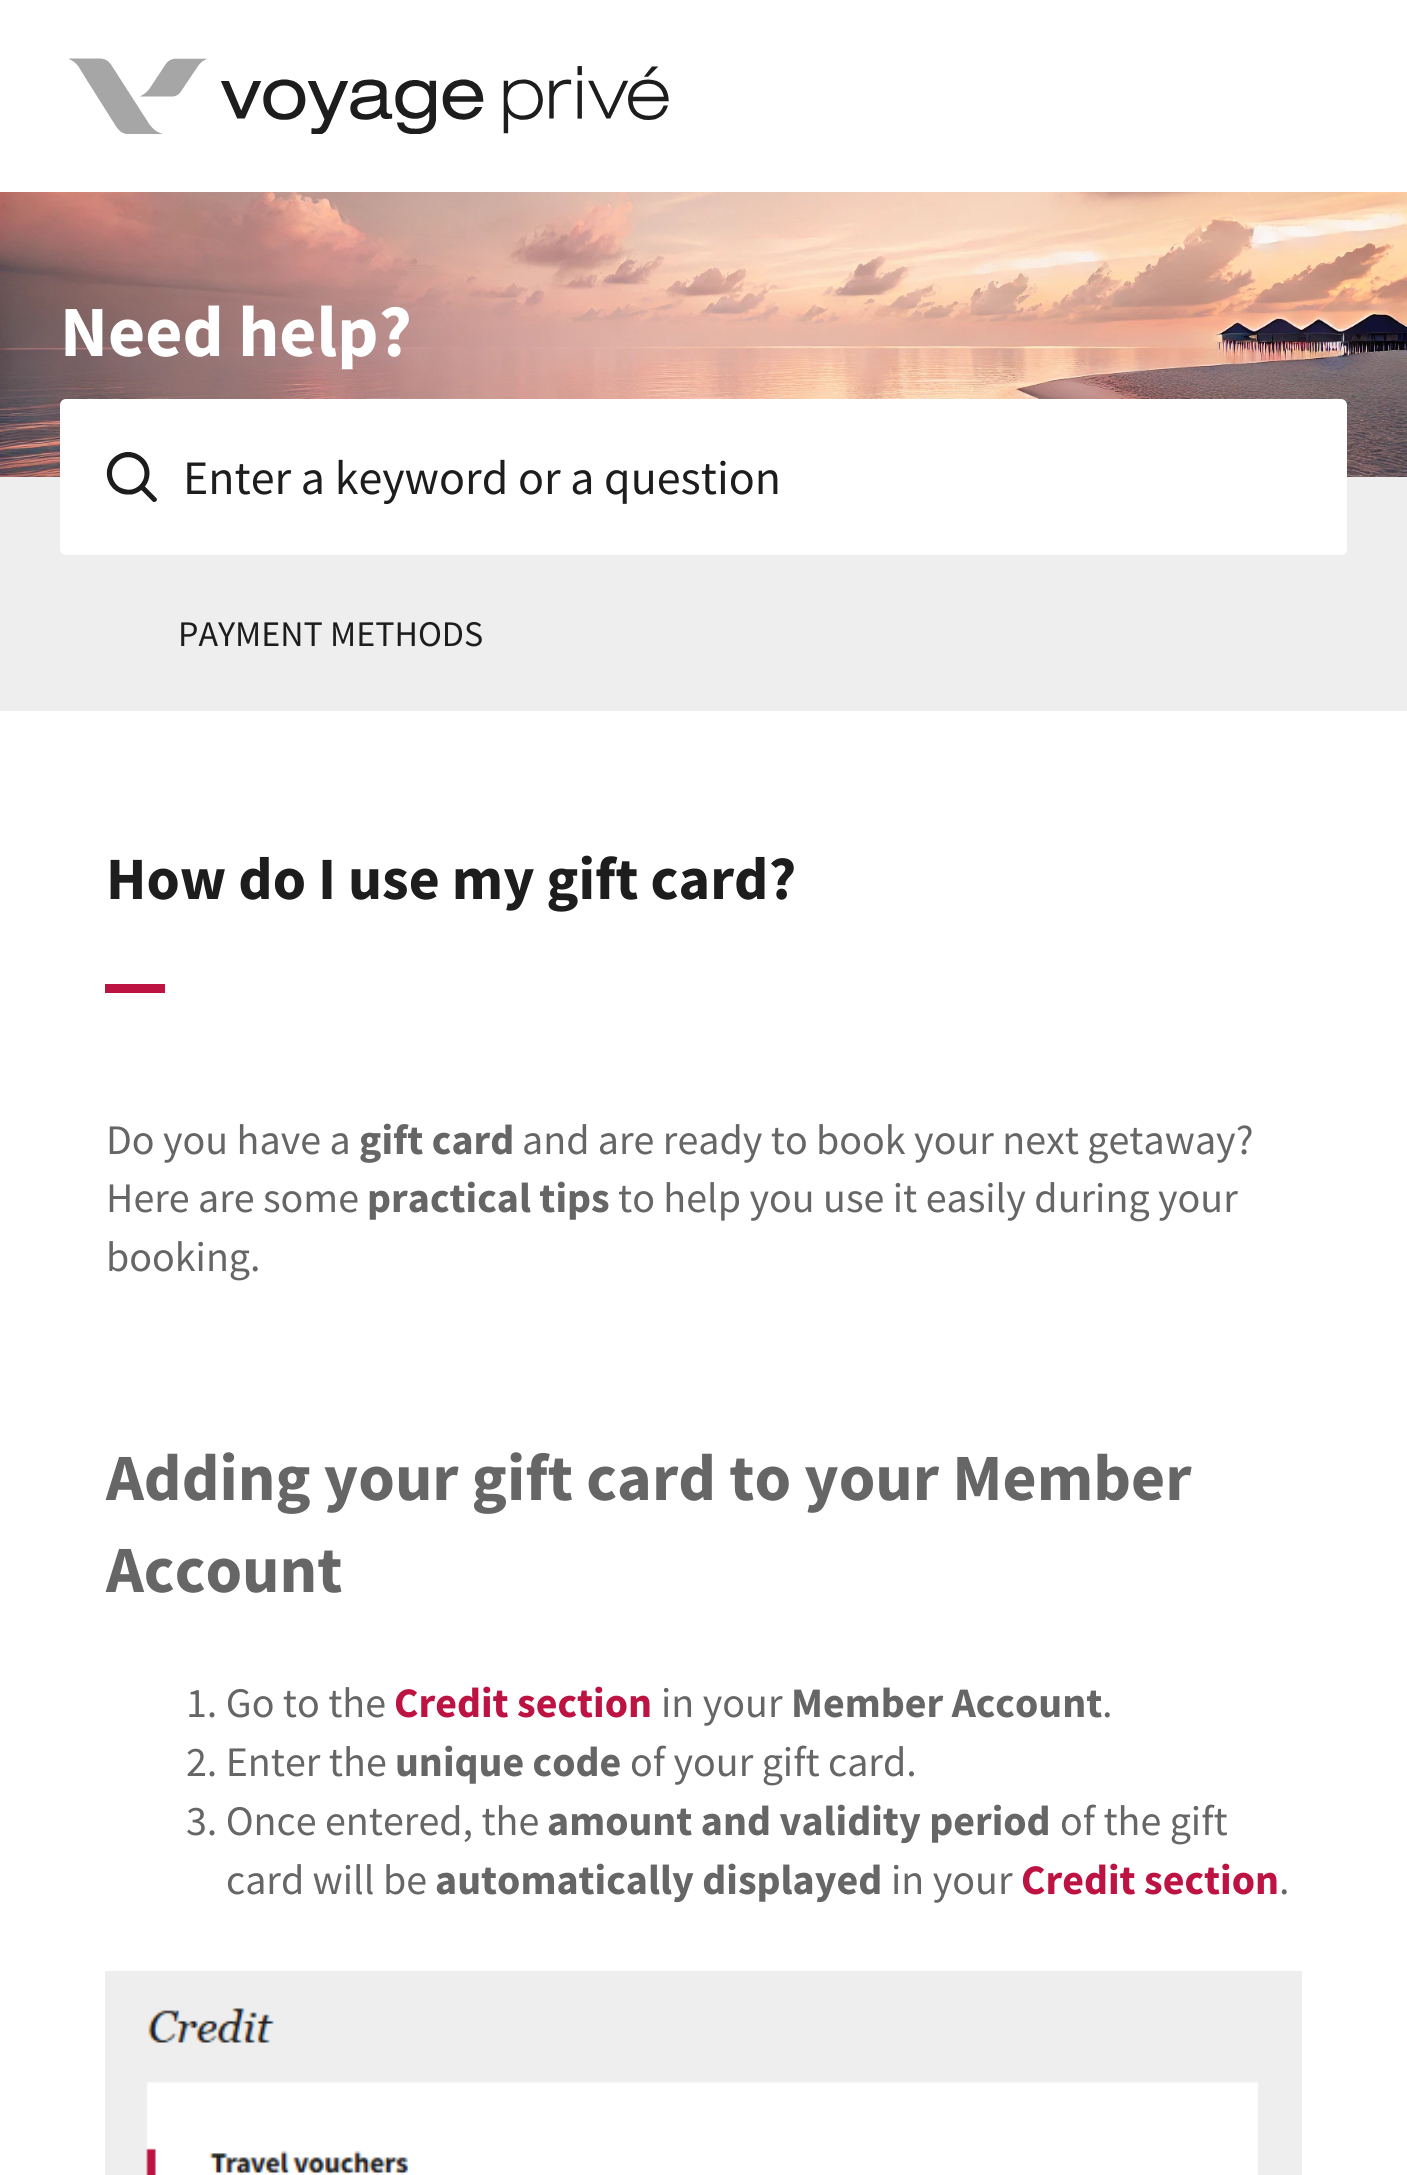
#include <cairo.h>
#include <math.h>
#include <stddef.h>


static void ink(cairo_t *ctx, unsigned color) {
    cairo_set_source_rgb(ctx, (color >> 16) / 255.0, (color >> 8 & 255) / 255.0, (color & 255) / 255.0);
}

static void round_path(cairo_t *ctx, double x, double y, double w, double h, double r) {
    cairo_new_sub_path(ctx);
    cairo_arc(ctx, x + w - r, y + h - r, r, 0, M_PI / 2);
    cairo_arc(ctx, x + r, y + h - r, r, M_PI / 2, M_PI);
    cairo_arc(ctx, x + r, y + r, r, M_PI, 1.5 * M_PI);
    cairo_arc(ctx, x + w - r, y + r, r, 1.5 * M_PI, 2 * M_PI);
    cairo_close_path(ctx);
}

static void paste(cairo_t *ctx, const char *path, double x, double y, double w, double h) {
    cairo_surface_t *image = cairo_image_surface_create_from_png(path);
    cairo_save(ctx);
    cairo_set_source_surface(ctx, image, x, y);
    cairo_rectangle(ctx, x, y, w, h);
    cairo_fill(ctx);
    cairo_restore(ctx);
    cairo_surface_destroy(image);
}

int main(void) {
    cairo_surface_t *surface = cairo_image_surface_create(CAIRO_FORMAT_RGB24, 1407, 2175);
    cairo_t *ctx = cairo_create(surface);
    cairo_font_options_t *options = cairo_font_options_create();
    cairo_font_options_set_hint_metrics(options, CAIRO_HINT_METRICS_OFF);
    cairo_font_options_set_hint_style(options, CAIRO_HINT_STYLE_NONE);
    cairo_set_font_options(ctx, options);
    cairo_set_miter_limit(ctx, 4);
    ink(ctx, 0xFFFFFF);
    cairo_paint(ctx);
    paste(ctx, "media/1.png", 69, 58, 600, 76);
    paste(ctx, "media/2.png", 0, 192, 1407, 285);
    cairo_select_font_face(ctx, "Source Sans Pro", CAIRO_FONT_SLANT_NORMAL, CAIRO_FONT_WEIGHT_BOLD);
    cairo_set_font_size(ctx, 72);
    ink(ctx, 0xFFFFFF);
    cairo_move_to(ctx, 60, 356);
    cairo_show_text(ctx, "Need help?");
    ink(ctx, 0xEEEEEE);
    cairo_rectangle(ctx, 0, 477, 1407, 234);
    cairo_fill(ctx);
    ink(ctx, 0xFFFFFF);
    round_path(ctx, 61.5, 400.5, 1284, 153, 4.5);
    cairo_fill_preserve(ctx);
    cairo_set_line_width(ctx, 3);
    cairo_stroke(ctx);
    paste(ctx, "media/3.png", 106, 452, 51, 50);
    cairo_select_font_face(ctx, "Source Sans Pro", CAIRO_FONT_SLANT_NORMAL, CAIRO_FONT_WEIGHT_NORMAL);
    cairo_set_font_size(ctx, 48);
    ink(ctx, 0x1D1D1D);
    cairo_move_to(ctx, 183, 494);
    cairo_show_text(ctx, "Enter a keyword or a question");
    cairo_set_font_size(ctx, 36);
    cairo_move_to(ctx, 178, 646);
    cairo_show_text(ctx, "PAYMENT METHODS");
    cairo_select_font_face(ctx, "Source Sans Pro", CAIRO_FONT_SLANT_NORMAL, CAIRO_FONT_WEIGHT_BOLD);
    cairo_set_font_size(ctx, 60);
    cairo_move_to(ctx, 106, 899);
    cairo_show_text(ctx, "How do I use my gift card?");
    ink(ctx, 0xBD1343);
    cairo_rectangle(ctx, 105, 984, 60, 9);
    cairo_fill(ctx);
    cairo_select_font_face(ctx, "Source Sans Pro", CAIRO_FONT_SLANT_NORMAL, CAIRO_FONT_WEIGHT_NORMAL);
    cairo_set_font_size(ctx, 42);
    ink(ctx, 0x666666);
    cairo_move_to(ctx, 106, 1154);
    cairo_show_text(ctx, "Do you have a");
    cairo_select_font_face(ctx, "Source Sans Pro", CAIRO_FONT_SLANT_NORMAL, CAIRO_FONT_WEIGHT_BOLD);
    cairo_move_to(ctx, 359, 1154);
    cairo_show_text(ctx, "gift card");
    cairo_select_font_face(ctx, "Source Sans Pro", CAIRO_FONT_SLANT_NORMAL, CAIRO_FONT_WEIGHT_NORMAL);
    cairo_move_to(ctx, 522, 1154);
    cairo_show_text(ctx, "and are ready to book your next getaway?");
    cairo_move_to(ctx, 106, 1212);
    cairo_show_text(ctx, "Here are some");
    cairo_select_font_face(ctx, "Source Sans Pro", CAIRO_FONT_SLANT_NORMAL, CAIRO_FONT_WEIGHT_BOLD);
    cairo_move_to(ctx, 367, 1212);
    cairo_show_text(ctx, "practical tips");
    cairo_select_font_face(ctx, "Source Sans Pro", CAIRO_FONT_SLANT_NORMAL, CAIRO_FONT_WEIGHT_NORMAL);
    cairo_move_to(ctx, 618, 1212);
    cairo_show_text(ctx, "to help you use it easily during your");
    cairo_move_to(ctx, 106, 1271);
    cairo_show_text(ctx, "booking.");
    cairo_select_font_face(ctx, "Source Sans Pro", CAIRO_FONT_SLANT_NORMAL, CAIRO_FONT_WEIGHT_BOLD);
    cairo_set_font_size(ctx, 66);
    cairo_move_to(ctx, 106, 1500);
    cairo_show_text(ctx, "Adding your gift card to your Member");
    cairo_move_to(ctx, 106, 1592);
    cairo_show_text(ctx, "Account");
    cairo_select_font_face(ctx, "Source Sans Pro", CAIRO_FONT_SLANT_NORMAL, CAIRO_FONT_WEIGHT_NORMAL);
    cairo_set_font_size(ctx, 42);
    cairo_move_to(ctx, 186, 1717);
    cairo_show_text(ctx, "1. Go to the");
    cairo_select_font_face(ctx, "Source Sans Pro", CAIRO_FONT_SLANT_NORMAL, CAIRO_FONT_WEIGHT_BOLD);
    ink(ctx, 0xBD1343);
    cairo_move_to(ctx, 394, 1717);
    cairo_show_text(ctx, "Credit section");
    cairo_select_font_face(ctx, "Source Sans Pro", CAIRO_FONT_SLANT_NORMAL, CAIRO_FONT_WEIGHT_NORMAL);
    ink(ctx, 0x666666);
    cairo_move_to(ctx, 661, 1717);
    cairo_show_text(ctx, "in your");
    cairo_select_font_face(ctx, "Source Sans Pro", CAIRO_FONT_SLANT_NORMAL, CAIRO_FONT_WEIGHT_BOLD);
    cairo_move_to(ctx, 791, 1717);
    cairo_show_text(ctx, "Member Account");
    cairo_select_font_face(ctx, "Source Sans Pro", CAIRO_FONT_SLANT_NORMAL, CAIRO_FONT_WEIGHT_NORMAL);
    cairo_move_to(ctx, 1102, 1717);
    cairo_show_text(ctx, ".");
    cairo_move_to(ctx, 186, 1776);
    cairo_show_text(ctx, "2. Enter the");
    cairo_select_font_face(ctx, "Source Sans Pro", CAIRO_FONT_SLANT_NORMAL, CAIRO_FONT_WEIGHT_BOLD);
    cairo_move_to(ctx, 395, 1776);
    cairo_show_text(ctx, "unique code");
    cairo_select_font_face(ctx, "Source Sans Pro", CAIRO_FONT_SLANT_NORMAL, CAIRO_FONT_WEIGHT_NORMAL);
    cairo_move_to(ctx, 630, 1776);
    cairo_show_text(ctx, "of your gift card.");
    cairo_move_to(ctx, 186, 1835);
    cairo_show_text(ctx, "3. Once entered, the");
    cairo_select_font_face(ctx, "Source Sans Pro", CAIRO_FONT_SLANT_NORMAL, CAIRO_FONT_WEIGHT_BOLD);
    cairo_move_to(ctx, 547, 1835);
    cairo_show_text(ctx, "amount and validity period");
    cairo_select_font_face(ctx, "Source Sans Pro", CAIRO_FONT_SLANT_NORMAL, CAIRO_FONT_WEIGHT_NORMAL);
    cairo_move_to(ctx, 1060, 1835);
    cairo_show_text(ctx, "of the gift");
    cairo_move_to(ctx, 226, 1894);
    cairo_show_text(ctx, "card will be");
    cairo_select_font_face(ctx, "Source Sans Pro", CAIRO_FONT_SLANT_NORMAL, CAIRO_FONT_WEIGHT_BOLD);
    cairo_move_to(ctx, 435, 1894);
    cairo_show_text(ctx, "automatically displayed");
    cairo_select_font_face(ctx, "Source Sans Pro", CAIRO_FONT_SLANT_NORMAL, CAIRO_FONT_WEIGHT_NORMAL);
    cairo_move_to(ctx, 891, 1894);
    cairo_show_text(ctx, "in your");
    cairo_select_font_face(ctx, "Source Sans Pro", CAIRO_FONT_SLANT_NORMAL, CAIRO_FONT_WEIGHT_BOLD);
    ink(ctx, 0xBD1343);
    cairo_move_to(ctx, 1021, 1894);
    cairo_show_text(ctx, "Credit section");
    cairo_select_font_face(ctx, "Source Sans Pro", CAIRO_FONT_SLANT_NORMAL, CAIRO_FONT_WEIGHT_NORMAL);
    ink(ctx, 0x666666);
    cairo_move_to(ctx, 1279, 1894);
    cairo_show_text(ctx, ".");
    paste(ctx, "media/4.png", 105, 1971, 1197, 204);
    cairo_surface_write_to_png(surface, "image.png");
    cairo_font_options_destroy(options);
    cairo_destroy(ctx);
    cairo_surface_destroy(surface);
    return 0;
}
